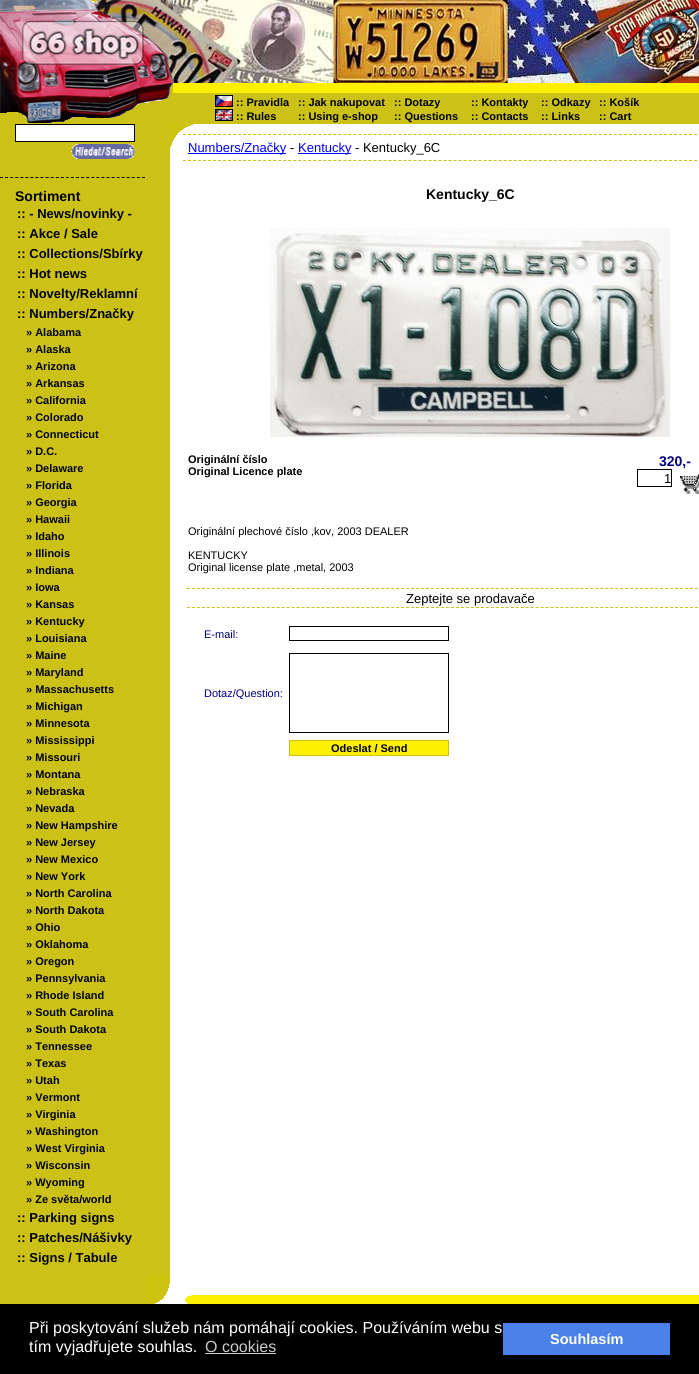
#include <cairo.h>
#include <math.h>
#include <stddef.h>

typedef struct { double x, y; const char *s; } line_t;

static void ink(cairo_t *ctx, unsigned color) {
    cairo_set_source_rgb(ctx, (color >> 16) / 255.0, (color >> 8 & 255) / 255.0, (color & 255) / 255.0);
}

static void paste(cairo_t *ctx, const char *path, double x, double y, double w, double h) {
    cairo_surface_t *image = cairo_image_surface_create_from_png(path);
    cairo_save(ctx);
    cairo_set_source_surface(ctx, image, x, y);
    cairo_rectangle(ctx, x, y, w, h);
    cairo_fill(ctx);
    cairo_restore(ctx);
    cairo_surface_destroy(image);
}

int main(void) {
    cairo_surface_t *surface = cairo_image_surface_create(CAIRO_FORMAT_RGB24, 699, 1374);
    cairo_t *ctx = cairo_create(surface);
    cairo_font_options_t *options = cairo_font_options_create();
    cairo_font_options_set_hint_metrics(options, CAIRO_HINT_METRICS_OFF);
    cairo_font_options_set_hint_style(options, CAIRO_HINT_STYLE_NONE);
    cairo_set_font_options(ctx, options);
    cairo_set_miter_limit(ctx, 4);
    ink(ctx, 0xFFFFFF);
    cairo_paint(ctx);
    ink(ctx, 0xCCC117);
    cairo_rectangle(ctx, 0, 0, 173, 124);
    cairo_fill(ctx);
    paste(ctx, "media/1.png", 0, 0, 173, 123);
    paste(ctx, "media/2.png", 173, 0, 526, 83);
    ink(ctx, 0xFFF002);
    cairo_rectangle(ctx, 173, 83, 526, 10);
    cairo_fill(ctx);
    ink(ctx, 0xCCC117);
    cairo_rectangle(ctx, 173, 93, 526, 31);
    cairo_fill(ctx);
    paste(ctx, "media/3.png", 215, 95, 18, 12);
    cairo_select_font_face(ctx, "Liberation Sans", CAIRO_FONT_SLANT_NORMAL, CAIRO_FONT_WEIGHT_BOLD);
    cairo_set_font_size(ctx, 11);
    ink(ctx, 0x000000);
    {
        static const line_t items[] = {
            {236, 106, ":: Pravidla"},
            {298, 106, ":: Jak nakupovat"},
            {394, 106, ":: Dotazy"},
            {471, 106, ":: Kontakty"},
            {541, 106, ":: Odkazy"},
            {599, 106, ":: Košík"},
        };
        for (size_t i = 0; i < sizeof items / sizeof *items; i++) {
            cairo_move_to(ctx, items[i].x, items[i].y);
            cairo_show_text(ctx, items[i].s);
        }
    }
    paste(ctx, "media/4.png", 215, 109, 18, 12);
    {
        static const line_t items[] = {
            {236, 120, ":: Rules"},
            {298, 120, ":: Using e-shop"},
            {394, 120, ":: Questions"},
            {471, 120, ":: Contacts"},
            {541, 120, ":: Links"},
            {599, 120, ":: Cart"},
        };
        for (size_t i = 0; i < sizeof items / sizeof *items; i++) {
            cairo_move_to(ctx, items[i].x, items[i].y);
            cairo_show_text(ctx, items[i].s);
        }
    }
    cairo_new_path(ctx);
    cairo_move_to(ctx, 183, 134.5);
    cairo_line_to(ctx, 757, 134.5);
    ink(ctx, 0xCCC117);
    cairo_set_line_width(ctx, 1);
    cairo_set_dash(ctx, (double[]){3, 2.01}, 2, 0);
    cairo_stroke(ctx);
    ink(ctx, 0x0000FF);
    cairo_rectangle(ctx, 188, 153, 98, 1);
    cairo_fill(ctx);
    cairo_select_font_face(ctx, "Liberation Sans", CAIRO_FONT_SLANT_NORMAL, CAIRO_FONT_WEIGHT_NORMAL);
    cairo_set_font_size(ctx, 13);
    cairo_move_to(ctx, 188, 152);
    cairo_show_text(ctx, "Numbers/Značky");
    paste(ctx, "media/5.png", 170, 124, 23, 23);
    ink(ctx, 0xCCC117);
    cairo_rectangle(ctx, 0, 124, 170, 1150);
    cairo_fill(ctx);
    cairo_new_path(ctx);
    cairo_move_to(ctx, 0, 177.5);
    cairo_line_to(ctx, 145, 177.5);
    ink(ctx, 0x000000);
    cairo_set_dash(ctx, (double[]){3, 2.07}, 2, 0);
    cairo_stroke(ctx);
    ink(ctx, 0xFFFFFF);
    cairo_rectangle(ctx, 15.5, 124.5, 119, 17);
    cairo_fill_preserve(ctx);
    ink(ctx, 0x000000);
    cairo_set_dash(ctx, NULL, 0, 0);
    cairo_stroke(ctx);
    paste(ctx, "media/6.png", 71, 144, 64, 15);
    cairo_select_font_face(ctx, "Liberation Sans", CAIRO_FONT_SLANT_NORMAL, CAIRO_FONT_WEIGHT_BOLD);
    cairo_set_font_size(ctx, 14);
    cairo_move_to(ctx, 15, 201);
    cairo_show_text(ctx, "Sortiment");
    cairo_set_font_size(ctx, 13);
    {
        static const line_t items[] = {
            {17, 218, ":: - News/novinky -"},
            {17, 238, ":: Akce / Sale"},
            {17, 258, ":: Collections/Sbírky"},
            {17, 278, ":: Hot news"},
            {17, 298, ":: Novelty/Reklamní"},
            {17, 318, ":: Numbers/Značky"},
        };
        for (size_t i = 0; i < sizeof items / sizeof *items; i++) {
            cairo_move_to(ctx, items[i].x, items[i].y);
            cairo_show_text(ctx, items[i].s);
        }
    }
    cairo_set_font_size(ctx, 11);
    {
        static const line_t items[] = {
            {26, 336, "» Alabama"},
            {26, 353, "» Alaska"},
            {26, 370, "» Arizona"},
            {26, 387, "» Arkansas"},
            {26, 404, "» California"},
            {26, 421, "» Colorado"},
            {26, 438, "» Connecticut"},
            {26, 455, "» D.C."},
            {26, 472, "» Delaware"},
            {26, 489, "» Florida"},
            {26, 506, "» Georgia"},
            {26, 523, "» Hawaii"},
            {26, 540, "» Idaho"},
            {26, 557, "» Illinois"},
            {26, 574, "» Indiana"},
            {26, 591, "» Iowa"},
            {26, 608, "» Kansas"},
            {26, 625, "» Kentucky"},
            {26, 642, "» Louisiana"},
            {26, 659, "» Maine"},
            {26, 676, "» Maryland"},
            {26, 693, "» Massachusetts"},
            {26, 710, "» Michigan"},
            {26, 727, "» Minnesota"},
            {26, 744, "» Mississippi"},
            {26, 761, "» Missouri"},
            {26, 778, "» Montana"},
            {26, 795, "» Nebraska"},
            {26, 812, "» Nevada"},
            {26, 829, "» New Hampshire"},
            {26, 846, "» New Jersey"},
            {26, 863, "» New Mexico"},
            {26, 880, "» New York"},
            {26, 897, "» North Carolina"},
            {26, 914, "» North Dakota"},
            {26, 931, "» Ohio"},
            {26, 948, "» Oklahoma"},
            {26, 965, "» Oregon"},
            {26, 982, "» Pennsylvania"},
            {26, 999, "» Rhode Island"},
            {26, 1016, "» South Carolina"},
            {26, 1033, "» South Dakota"},
            {26, 1050, "» Tennessee"},
            {26, 1067, "» Texas"},
            {26, 1084, "» Utah"},
            {26, 1101, "» Vermont"},
            {26, 1118, "» Virginia"},
            {26, 1135, "» Washington"},
            {26, 1152, "» West Virginia"},
            {26, 1169, "» Wisconsin"},
            {26, 1186, "» Wyoming"},
            {26, 1203, "» Ze světa/world"},
        };
        for (size_t i = 0; i < sizeof items / sizeof *items; i++) {
            cairo_move_to(ctx, items[i].x, items[i].y);
            cairo_show_text(ctx, items[i].s);
        }
    }
    cairo_set_font_size(ctx, 13);
    {
        static const line_t items[] = {
            {17, 1222, ":: Parking signs"},
            {17, 1242, ":: Patches/Nášivky"},
            {17, 1262, ":: Signs / Tabule"},
        };
        for (size_t i = 0; i < sizeof items / sizeof *items; i++) {
            cairo_move_to(ctx, items[i].x, items[i].y);
            cairo_show_text(ctx, items[i].s);
        }
    }
    cairo_new_path(ctx);
    cairo_move_to(ctx, 183, 160.5);
    cairo_line_to(ctx, 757, 160.5);
    ink(ctx, 0xCCC117);
    cairo_set_dash(ctx, (double[]){3, 2.01}, 2, 0);
    cairo_stroke(ctx);
    cairo_select_font_face(ctx, "Liberation Sans", CAIRO_FONT_SLANT_NORMAL, CAIRO_FONT_WEIGHT_NORMAL);
    ink(ctx, 0x000000);
    cairo_move_to(ctx, 290, 152);
    cairo_show_text(ctx, "-");
    ink(ctx, 0x0000FF);
    cairo_rectangle(ctx, 298, 153, 53, 1);
    cairo_fill(ctx);
    cairo_move_to(ctx, 298, 152);
    cairo_show_text(ctx, "Kentucky");
    ink(ctx, 0x000000);
    cairo_move_to(ctx, 355, 152);
    cairo_show_text(ctx, "- Kentucky_6C");
    cairo_select_font_face(ctx, "Liberation Sans", CAIRO_FONT_SLANT_NORMAL, CAIRO_FONT_WEIGHT_BOLD);
    cairo_set_font_size(ctx, 14);
    cairo_move_to(ctx, 426, 199);
    cairo_show_text(ctx, "Kentucky_6C");
    paste(ctx, "media/7.png", 270, 228, 400, 209);
    cairo_set_font_size(ctx, 11);
    cairo_move_to(ctx, 188, 463);
    cairo_show_text(ctx, "Originální číslo");
    cairo_move_to(ctx, 188, 475);
    cairo_show_text(ctx, "Original Licence plate");
    cairo_set_font_size(ctx, 14);
    ink(ctx, 0x000080);
    cairo_move_to(ctx, 659, 466);
    cairo_show_text(ctx, "320,-");
    cairo_rectangle(ctx, 637.5, 469.5, 34, 17);
    ink(ctx, 0x000000);
    cairo_set_dash(ctx, NULL, 0, 0);
    cairo_stroke(ctx);
    cairo_select_font_face(ctx, "Liberation Sans", CAIRO_FONT_SLANT_NORMAL, CAIRO_FONT_WEIGHT_NORMAL);
    cairo_set_font_size(ctx, 13);
    cairo_move_to(ctx, 664, 483);
    cairo_show_text(ctx, "1");
    paste(ctx, "media/8.png", 680, 473, 19, 21);
    cairo_set_font_size(ctx, 11);
    {
        static const line_t items[] = {
            {188, 535, "Originální plechové číslo ,kov, 2003 DEALER"},
            {188, 559, "KENTUCKY"},
            {188, 571, "Original license plate ,metal, 2003"},
        };
        for (size_t i = 0; i < sizeof items / sizeof *items; i++) {
            cairo_move_to(ctx, items[i].x, items[i].y);
            cairo_show_text(ctx, items[i].s);
        }
    }
    cairo_new_path(ctx);
    cairo_move_to(ctx, 187, 588.5);
    cairo_line_to(ctx, 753, 588.5);
    ink(ctx, 0xCCC117);
    cairo_set_dash(ctx, (double[]){3, 1.98}, 2, 0);
    cairo_stroke(ctx);
    cairo_new_path(ctx);
    cairo_move_to(ctx, 187, 607.5);
    cairo_line_to(ctx, 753, 607.5);
    cairo_stroke(ctx);
    cairo_set_font_size(ctx, 13);
    ink(ctx, 0x000000);
    cairo_move_to(ctx, 406, 603);
    cairo_show_text(ctx, "Zeptejte se prodavače");
    cairo_set_font_size(ctx, 11);
    ink(ctx, 0x000080);
    cairo_move_to(ctx, 204, 638);
    cairo_show_text(ctx, "E-mail:");
    cairo_rectangle(ctx, 289.5, 626.5, 159, 14);
    ink(ctx, 0x000000);
    cairo_set_dash(ctx, NULL, 0, 0);
    cairo_stroke(ctx);
    ink(ctx, 0x000080);
    cairo_move_to(ctx, 204, 697);
    cairo_show_text(ctx, "Dotaz/Question:");
    cairo_rectangle(ctx, 289.5, 653.5, 159, 79);
    ink(ctx, 0x000000);
    cairo_stroke(ctx);
    ink(ctx, 0xFFF002);
    cairo_rectangle(ctx, 289.5, 740.5, 159, 15);
    cairo_fill_preserve(ctx);
    ink(ctx, 0xCCC117);
    cairo_stroke(ctx);
    cairo_select_font_face(ctx, "Liberation Sans", CAIRO_FONT_SLANT_NORMAL, CAIRO_FONT_WEIGHT_BOLD);
    ink(ctx, 0x000000);
    cairo_move_to(ctx, 331, 752);
    cairo_show_text(ctx, "Odeslat / Send");
    ink(ctx, 0xCCC117);
    cairo_rectangle(ctx, 0, 1274, 146, 30);
    cairo_fill(ctx);
    paste(ctx, "media/9.png", 146, 1274, 24, 30);
    paste(ctx, "media/10.png", 185, 1295, 10, 9);
    ink(ctx, 0xFFF002);
    cairo_rectangle(ctx, 195, 1295, 504, 9);
    cairo_fill(ctx);
    ink(ctx, 0x000000);
    cairo_rectangle(ctx, 0, 1304, 699, 70);
    cairo_fill(ctx);
    cairo_select_font_face(ctx, "Liberation Sans", CAIRO_FONT_SLANT_NORMAL, CAIRO_FONT_WEIGHT_NORMAL);
    cairo_set_font_size(ctx, 16);
    ink(ctx, 0xFFFFFF);
    cairo_move_to(ctx, 29, 1333);
    cairo_show_text(ctx, "Při poskytování služeb nám pomáhají cookies. Používáním webu s");
    cairo_move_to(ctx, 29, 1352);
    cairo_show_text(ctx, "tím vyjadřujete souhlas.");
    ink(ctx, 0xCCCCCC);
    cairo_move_to(ctx, 205, 1352);
    cairo_show_text(ctx, "O cookies");
    cairo_rectangle(ctx, 205, 1353, 71, 1);
    cairo_fill(ctx);
    ink(ctx, 0x4B81E8);
    cairo_rectangle(ctx, 503, 1323, 167, 32);
    cairo_fill(ctx);
    cairo_select_font_face(ctx, "Liberation Sans", CAIRO_FONT_SLANT_NORMAL, CAIRO_FONT_WEIGHT_BOLD);
    cairo_set_font_size(ctx, 14.5);
    ink(ctx, 0xFFFFFF);
    cairo_move_to(ctx, 550, 1344);
    cairo_show_text(ctx, "Souhlasím");
    cairo_surface_write_to_png(surface, "image.png");
    cairo_font_options_destroy(options);
    cairo_destroy(ctx);
    cairo_surface_destroy(surface);
    return 0;
}
